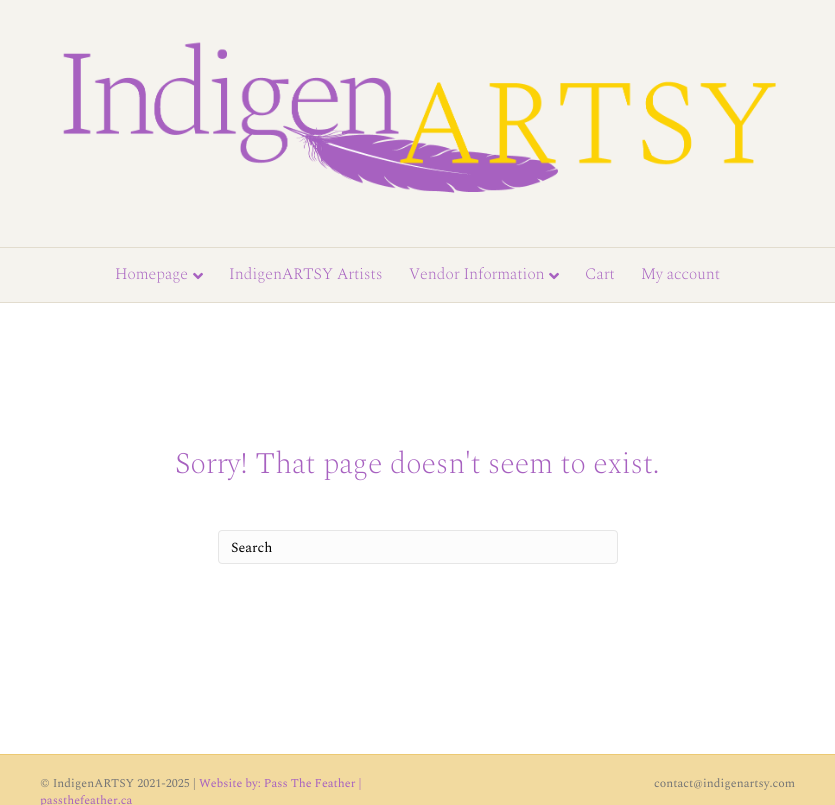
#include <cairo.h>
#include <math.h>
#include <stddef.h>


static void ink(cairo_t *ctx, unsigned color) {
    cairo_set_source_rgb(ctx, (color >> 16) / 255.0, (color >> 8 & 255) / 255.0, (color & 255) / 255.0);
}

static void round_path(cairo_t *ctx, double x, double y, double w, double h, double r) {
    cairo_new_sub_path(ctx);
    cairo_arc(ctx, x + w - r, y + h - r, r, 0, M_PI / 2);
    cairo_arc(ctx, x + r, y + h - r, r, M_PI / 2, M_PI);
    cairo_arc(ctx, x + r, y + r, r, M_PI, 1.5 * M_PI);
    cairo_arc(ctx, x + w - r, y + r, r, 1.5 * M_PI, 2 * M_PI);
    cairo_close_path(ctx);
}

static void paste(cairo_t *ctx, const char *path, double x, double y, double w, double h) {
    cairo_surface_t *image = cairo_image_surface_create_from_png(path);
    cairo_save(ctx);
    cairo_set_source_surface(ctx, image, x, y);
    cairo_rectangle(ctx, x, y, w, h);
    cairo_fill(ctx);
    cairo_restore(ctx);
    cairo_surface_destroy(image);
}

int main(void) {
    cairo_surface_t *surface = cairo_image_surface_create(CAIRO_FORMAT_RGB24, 835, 805);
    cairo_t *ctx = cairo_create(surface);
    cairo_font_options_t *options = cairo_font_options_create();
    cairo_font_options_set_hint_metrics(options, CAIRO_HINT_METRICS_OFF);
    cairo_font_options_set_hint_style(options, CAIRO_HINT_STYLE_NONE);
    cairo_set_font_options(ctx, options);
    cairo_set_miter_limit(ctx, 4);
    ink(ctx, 0xF5F3EE);
    cairo_paint(ctx);
    paste(ctx, "media/1.png", 63, 42, 713, 151);
    ink(ctx, 0xE2DCCE);
    cairo_rectangle(ctx, 0, 247, 835, 1);
    cairo_fill(ctx);
    cairo_rectangle(ctx, 0, 302, 835, 1);
    cairo_fill(ctx);
    cairo_select_font_face(ctx, "Spectral ExtraLight", CAIRO_FONT_SLANT_NORMAL, CAIRO_FONT_WEIGHT_NORMAL);
    cairo_set_font_size(ctx, 16);
    ink(ctx, 0xA761C0);
    cairo_move_to(ctx, 115, 279);
    cairo_show_text(ctx, "Homepage");
    paste(ctx, "media/2.png", 193, 272, 10, 8);
    cairo_move_to(ctx, 229, 279);
    cairo_show_text(ctx, "IndigenARTSY Artists");
    cairo_move_to(ctx, 409, 279);
    cairo_show_text(ctx, "Vendor Information");
    paste(ctx, "media/2.png", 549, 272, 10, 8);
    cairo_move_to(ctx, 585, 279);
    cairo_show_text(ctx, "Cart");
    cairo_move_to(ctx, 641, 279);
    cairo_show_text(ctx, "My account");
    ink(ctx, 0xFFFFFF);
    cairo_rectangle(ctx, 0, 303, 835, 451);
    cairo_fill(ctx);
    cairo_set_font_size(ctx, 30);
    ink(ctx, 0xA761C0);
    cairo_move_to(ctx, 175, 473);
    cairo_show_text(ctx, "Sorry! That page doesn't seem to exist.");
    ink(ctx, 0xFCFCFC);
    round_path(ctx, 218.5, 530.5, 399, 33, 3.5);
    cairo_fill_preserve(ctx);
    ink(ctx, 0xE6E6E6);
    cairo_set_line_width(ctx, 1);
    cairo_stroke(ctx);
    cairo_select_font_face(ctx, "Spectral", CAIRO_FONT_SLANT_NORMAL, CAIRO_FONT_WEIGHT_NORMAL);
    cairo_set_font_size(ctx, 14);
    ink(ctx, 0x000000);
    cairo_move_to(ctx, 231, 552);
    cairo_show_text(ctx, "Search");
    ink(ctx, 0xF2DA9F);
    cairo_rectangle(ctx, 0, 755, 835, 50);
    cairo_fill(ctx);
    ink(ctx, 0xECC972);
    cairo_rectangle(ctx, 0, 754, 835, 1);
    cairo_fill(ctx);
    cairo_set_font_size(ctx, 12);
    ink(ctx, 0x757575);
    cairo_move_to(ctx, 40, 787);
    cairo_show_text(ctx, "© IndigenARTSY 2021-2025 |");
    ink(ctx, 0xA761C0);
    cairo_move_to(ctx, 199, 787);
    cairo_show_text(ctx, "Website by: Pass The Feather |");
    cairo_move_to(ctx, 40, 804);
    cairo_show_text(ctx, "passthefeather.ca");
    ink(ctx, 0x757575);
    cairo_move_to(ctx, 654, 787);
    cairo_show_text(ctx, "contact@indigenartsy.com");
    cairo_surface_write_to_png(surface, "image.png");
    cairo_font_options_destroy(options);
    cairo_destroy(ctx);
    cairo_surface_destroy(surface);
    return 0;
}
